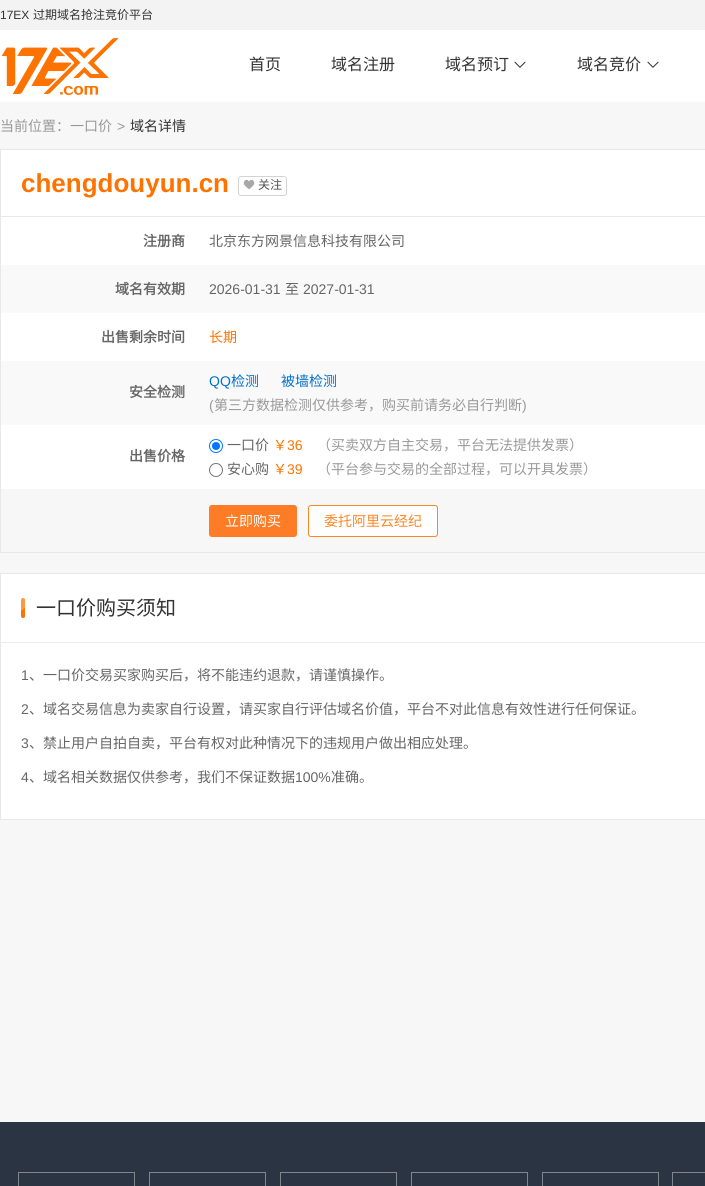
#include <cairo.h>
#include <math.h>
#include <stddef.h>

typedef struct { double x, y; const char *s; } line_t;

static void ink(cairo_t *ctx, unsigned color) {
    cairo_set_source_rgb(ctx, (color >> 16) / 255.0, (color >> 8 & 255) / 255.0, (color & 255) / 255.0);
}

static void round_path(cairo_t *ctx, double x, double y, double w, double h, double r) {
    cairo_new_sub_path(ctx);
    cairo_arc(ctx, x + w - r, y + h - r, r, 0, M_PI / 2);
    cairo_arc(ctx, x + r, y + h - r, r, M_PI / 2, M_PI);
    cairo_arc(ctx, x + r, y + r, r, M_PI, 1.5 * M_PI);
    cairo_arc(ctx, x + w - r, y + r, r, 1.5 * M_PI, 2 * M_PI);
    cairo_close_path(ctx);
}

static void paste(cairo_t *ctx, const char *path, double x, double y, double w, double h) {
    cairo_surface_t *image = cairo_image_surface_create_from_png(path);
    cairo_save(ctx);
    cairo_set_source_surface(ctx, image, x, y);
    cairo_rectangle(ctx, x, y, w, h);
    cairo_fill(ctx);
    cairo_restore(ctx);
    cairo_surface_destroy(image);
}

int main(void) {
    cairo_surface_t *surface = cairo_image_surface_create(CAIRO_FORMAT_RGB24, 705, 1186);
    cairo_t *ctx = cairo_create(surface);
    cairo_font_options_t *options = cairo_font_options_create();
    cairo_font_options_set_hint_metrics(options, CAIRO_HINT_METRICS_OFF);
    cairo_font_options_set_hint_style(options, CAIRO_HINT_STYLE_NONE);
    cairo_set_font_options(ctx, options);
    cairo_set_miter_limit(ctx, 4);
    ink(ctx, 0xF7F7F7);
    cairo_paint(ctx);
    ink(ctx, 0xF3F3F3);
    cairo_rectangle(ctx, 0, 0, 705, 30);
    cairo_fill(ctx);
    cairo_select_font_face(ctx, "Liberation Sans", CAIRO_FONT_SLANT_NORMAL, CAIRO_FONT_WEIGHT_NORMAL);
    cairo_set_font_size(ctx, 12);
    ink(ctx, 0x333333);
    cairo_move_to(ctx, 0, 19);
    cairo_show_text(ctx, "17EX");
    cairo_select_font_face(ctx, "Noto Sans CJK SC", CAIRO_FONT_SLANT_NORMAL, CAIRO_FONT_WEIGHT_NORMAL);
    cairo_move_to(ctx, 33, 19);
    cairo_show_text(ctx, "过期域名抢注竞价平台");
    ink(ctx, 0xFFFFFF);
    cairo_rectangle(ctx, 0, 30, 705, 72);
    cairo_fill(ctx);
    paste(ctx, "media/1.png", 1, 38, 118, 57);
    cairo_set_font_size(ctx, 16);
    ink(ctx, 0x333333);
    {
        static const line_t items[] = {
            {249, 70, "首页"},
            {331, 70, "域名注册"},
            {445, 70, "域名预订"},
        };
        for (size_t i = 0; i < sizeof items / sizeof *items; i++) {
            cairo_move_to(ctx, items[i].x, items[i].y);
            cairo_show_text(ctx, items[i].s);
        }
    }
    paste(ctx, "media/2.png", 514, 61, 12, 7);
    cairo_move_to(ctx, 577, 70);
    cairo_show_text(ctx, "域名竞价");
    paste(ctx, "media/2.png", 647, 61, 12, 7);
    cairo_set_font_size(ctx, 14);
    ink(ctx, 0x999999);
    cairo_move_to(ctx, 0, 131);
    cairo_show_text(ctx, "当前位置：一口价");
    cairo_select_font_face(ctx, "Liberation Sans", CAIRO_FONT_SLANT_NORMAL, CAIRO_FONT_WEIGHT_NORMAL);
    cairo_move_to(ctx, 117, 131);
    cairo_show_text(ctx, ">");
    cairo_select_font_face(ctx, "Noto Sans CJK SC", CAIRO_FONT_SLANT_NORMAL, CAIRO_FONT_WEIGHT_NORMAL);
    ink(ctx, 0x333333);
    cairo_move_to(ctx, 130, 131);
    cairo_show_text(ctx, "域名详情");
    ink(ctx, 0xFFFFFF);
    cairo_rectangle(ctx, 1, 150, 704, 339);
    cairo_fill(ctx);
    cairo_rectangle(ctx, 0.5, 149.5, 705, 403);
    ink(ctx, 0xE8E8E8);
    cairo_set_line_width(ctx, 1);
    cairo_stroke(ctx);
    cairo_select_font_face(ctx, "Liberation Sans", CAIRO_FONT_SLANT_NORMAL, CAIRO_FONT_WEIGHT_BOLD);
    cairo_set_font_size(ctx, 26);
    ink(ctx, 0xFE7300);
    cairo_move_to(ctx, 21, 192);
    cairo_show_text(ctx, "chengdouyun.cn");
    round_path(ctx, 238.5, 176.5, 48, 19, 2.5);
    ink(ctx, 0xD4D4D4);
    cairo_stroke(ctx);
    paste(ctx, "media/3.png", 243, 179, 12, 10);
    cairo_select_font_face(ctx, "Noto Sans CJK SC", CAIRO_FONT_SLANT_NORMAL, CAIRO_FONT_WEIGHT_NORMAL);
    cairo_set_font_size(ctx, 12);
    ink(ctx, 0x525252);
    cairo_move_to(ctx, 258, 189);
    cairo_show_text(ctx, "关注");
    ink(ctx, 0xE8E8E8);
    cairo_rectangle(ctx, 1, 216, 704, 1);
    cairo_fill(ctx);
    cairo_select_font_face(ctx, "Noto Sans CJK SC", CAIRO_FONT_SLANT_NORMAL, CAIRO_FONT_WEIGHT_BOLD);
    cairo_set_font_size(ctx, 14);
    ink(ctx, 0x666666);
    cairo_move_to(ctx, 143, 246);
    cairo_show_text(ctx, "注册商");
    cairo_select_font_face(ctx, "Noto Sans CJK SC", CAIRO_FONT_SLANT_NORMAL, CAIRO_FONT_WEIGHT_NORMAL);
    cairo_move_to(ctx, 209, 246);
    cairo_show_text(ctx, "北京东方网景信息科技有限公司");
    ink(ctx, 0xF9F9F9);
    cairo_rectangle(ctx, 1, 265, 704, 48);
    cairo_fill(ctx);
    cairo_select_font_face(ctx, "Noto Sans CJK SC", CAIRO_FONT_SLANT_NORMAL, CAIRO_FONT_WEIGHT_BOLD);
    ink(ctx, 0x666666);
    cairo_move_to(ctx, 115, 294);
    cairo_show_text(ctx, "域名有效期");
    cairo_select_font_face(ctx, "Liberation Sans", CAIRO_FONT_SLANT_NORMAL, CAIRO_FONT_WEIGHT_NORMAL);
    cairo_move_to(ctx, 209, 294);
    cairo_show_text(ctx, "2026-01-31");
    cairo_select_font_face(ctx, "Noto Sans CJK SC", CAIRO_FONT_SLANT_NORMAL, CAIRO_FONT_WEIGHT_NORMAL);
    cairo_move_to(ctx, 285, 294);
    cairo_show_text(ctx, "至");
    cairo_select_font_face(ctx, "Liberation Sans", CAIRO_FONT_SLANT_NORMAL, CAIRO_FONT_WEIGHT_NORMAL);
    cairo_move_to(ctx, 303, 294);
    cairo_show_text(ctx, "2027-01-31");
    cairo_select_font_face(ctx, "Noto Sans CJK SC", CAIRO_FONT_SLANT_NORMAL, CAIRO_FONT_WEIGHT_BOLD);
    cairo_move_to(ctx, 101, 342);
    cairo_show_text(ctx, "出售剩余时间");
    cairo_select_font_face(ctx, "Noto Sans CJK SC", CAIRO_FONT_SLANT_NORMAL, CAIRO_FONT_WEIGHT_NORMAL);
    ink(ctx, 0xFE7300);
    cairo_move_to(ctx, 209, 342);
    cairo_show_text(ctx, "长期");
    ink(ctx, 0xF9F9F9);
    cairo_rectangle(ctx, 1, 361, 704, 64);
    cairo_fill(ctx);
    cairo_select_font_face(ctx, "Noto Sans CJK SC", CAIRO_FONT_SLANT_NORMAL, CAIRO_FONT_WEIGHT_BOLD);
    ink(ctx, 0x666666);
    cairo_move_to(ctx, 129, 397);
    cairo_show_text(ctx, "安全检测");
    cairo_select_font_face(ctx, "Liberation Sans", CAIRO_FONT_SLANT_NORMAL, CAIRO_FONT_WEIGHT_NORMAL);
    ink(ctx, 0x0070CC);
    cairo_move_to(ctx, 209, 386);
    cairo_show_text(ctx, "QQ");
    cairo_select_font_face(ctx, "Noto Sans CJK SC", CAIRO_FONT_SLANT_NORMAL, CAIRO_FONT_WEIGHT_NORMAL);
    cairo_move_to(ctx, 231, 386);
    cairo_show_text(ctx, "检测");
    cairo_move_to(ctx, 281, 386);
    cairo_show_text(ctx, "被墙检测");
    cairo_select_font_face(ctx, "Liberation Sans", CAIRO_FONT_SLANT_NORMAL, CAIRO_FONT_WEIGHT_NORMAL);
    ink(ctx, 0x999999);
    cairo_move_to(ctx, 209, 410);
    cairo_show_text(ctx, "(");
    cairo_select_font_face(ctx, "Noto Sans CJK SC", CAIRO_FONT_SLANT_NORMAL, CAIRO_FONT_WEIGHT_NORMAL);
    cairo_move_to(ctx, 214, 410);
    cairo_show_text(ctx, "第三方数据检测仅供参考，购买前请务必自行判断");
    cairo_select_font_face(ctx, "Liberation Sans", CAIRO_FONT_SLANT_NORMAL, CAIRO_FONT_WEIGHT_NORMAL);
    cairo_move_to(ctx, 522, 410);
    cairo_show_text(ctx, ")");
    cairo_select_font_face(ctx, "Noto Sans CJK SC", CAIRO_FONT_SLANT_NORMAL, CAIRO_FONT_WEIGHT_BOLD);
    ink(ctx, 0x666666);
    cairo_move_to(ctx, 129, 461);
    cairo_show_text(ctx, "出售价格");
    cairo_new_path(ctx);
    cairo_arc(ctx, 216, 446, 6.5, 0, 2 * M_PI);
    ink(ctx, 0x0075FF);
    cairo_stroke(ctx);
    cairo_arc(ctx, 216, 446, 4, 0, 2 * M_PI);
    cairo_fill(ctx);
    cairo_select_font_face(ctx, "Noto Sans CJK SC", CAIRO_FONT_SLANT_NORMAL, CAIRO_FONT_WEIGHT_NORMAL);
    ink(ctx, 0x666666);
    cairo_move_to(ctx, 227, 450);
    cairo_show_text(ctx, "一口价");
    ink(ctx, 0xFE7300);
    cairo_move_to(ctx, 273, 450);
    cairo_show_text(ctx, "￥");
    cairo_select_font_face(ctx, "Liberation Sans", CAIRO_FONT_SLANT_NORMAL, CAIRO_FONT_WEIGHT_NORMAL);
    cairo_move_to(ctx, 287, 450);
    cairo_show_text(ctx, "36");
    cairo_select_font_face(ctx, "Noto Sans CJK SC", CAIRO_FONT_SLANT_NORMAL, CAIRO_FONT_WEIGHT_NORMAL);
    ink(ctx, 0x999999);
    cairo_move_to(ctx, 317, 450);
    cairo_show_text(ctx, "（买卖双方自主交易，平台无法提供发票）");
    cairo_new_path(ctx);
    cairo_arc(ctx, 216, 470, 6.5, 0, 2 * M_PI);
    ink(ctx, 0x767676);
    cairo_stroke(ctx);
    ink(ctx, 0x666666);
    cairo_move_to(ctx, 227, 474);
    cairo_show_text(ctx, "安心购");
    ink(ctx, 0xFE7300);
    cairo_move_to(ctx, 273, 474);
    cairo_show_text(ctx, "￥");
    cairo_select_font_face(ctx, "Liberation Sans", CAIRO_FONT_SLANT_NORMAL, CAIRO_FONT_WEIGHT_NORMAL);
    cairo_move_to(ctx, 287, 474);
    cairo_show_text(ctx, "39");
    cairo_select_font_face(ctx, "Noto Sans CJK SC", CAIRO_FONT_SLANT_NORMAL, CAIRO_FONT_WEIGHT_NORMAL);
    ink(ctx, 0x999999);
    cairo_move_to(ctx, 317, 474);
    cairo_show_text(ctx, "（平台参与交易的全部过程，可以开具发票）");
    ink(ctx, 0xFE7C25);
    round_path(ctx, 209.5, 505.5, 87, 31, 2.5);
    cairo_fill_preserve(ctx);
    cairo_stroke(ctx);
    ink(ctx, 0xFEFEFE);
    cairo_move_to(ctx, 225, 526);
    cairo_show_text(ctx, "立即购买");
    round_path(ctx, 308.5, 505.5, 129, 31, 2.5);
    cairo_fill_preserve(ctx);
    ink(ctx, 0xFD8725);
    cairo_stroke(ctx);
    cairo_move_to(ctx, 324, 526);
    cairo_show_text(ctx, "委托阿里云经纪");
    ink(ctx, 0xFFFFFF);
    cairo_rectangle(ctx, 0.5, 573.5, 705, 246);
    cairo_fill_preserve(ctx);
    ink(ctx, 0xE8E8E8);
    cairo_stroke(ctx);
    ink(ctx, 0xEBEBEB);
    cairo_rectangle(ctx, 1, 642, 704, 1);
    cairo_fill(ctx);
    paste(ctx, "media/4.png", 21, 598, 4, 20);
    cairo_set_font_size(ctx, 20);
    ink(ctx, 0x333333);
    cairo_move_to(ctx, 36, 615);
    cairo_show_text(ctx, "一口价购买须知");
    cairo_select_font_face(ctx, "Liberation Sans", CAIRO_FONT_SLANT_NORMAL, CAIRO_FONT_WEIGHT_NORMAL);
    cairo_set_font_size(ctx, 14);
    ink(ctx, 0x666666);
    cairo_move_to(ctx, 21, 680);
    cairo_show_text(ctx, "1");
    cairo_select_font_face(ctx, "Noto Sans CJK SC", CAIRO_FONT_SLANT_NORMAL, CAIRO_FONT_WEIGHT_NORMAL);
    cairo_move_to(ctx, 29, 680);
    cairo_show_text(ctx, "、一口价交易买家购买后，将不能违约退款，请谨慎操作。");
    cairo_select_font_face(ctx, "Liberation Sans", CAIRO_FONT_SLANT_NORMAL, CAIRO_FONT_WEIGHT_NORMAL);
    cairo_move_to(ctx, 21, 714);
    cairo_show_text(ctx, "2");
    cairo_select_font_face(ctx, "Noto Sans CJK SC", CAIRO_FONT_SLANT_NORMAL, CAIRO_FONT_WEIGHT_NORMAL);
    cairo_move_to(ctx, 29, 714);
    cairo_show_text(ctx, "、域名交易信息为卖家自行设置，请买家自行评估域名价值，平台不对此信息有效性进行任何保证。");
    cairo_select_font_face(ctx, "Liberation Sans", CAIRO_FONT_SLANT_NORMAL, CAIRO_FONT_WEIGHT_NORMAL);
    cairo_move_to(ctx, 21, 748);
    cairo_show_text(ctx, "3");
    cairo_select_font_face(ctx, "Noto Sans CJK SC", CAIRO_FONT_SLANT_NORMAL, CAIRO_FONT_WEIGHT_NORMAL);
    cairo_move_to(ctx, 29, 748);
    cairo_show_text(ctx, "、禁止用户自拍自卖，平台有权对此种情况下的违规用户做出相应处理。");
    cairo_select_font_face(ctx, "Liberation Sans", CAIRO_FONT_SLANT_NORMAL, CAIRO_FONT_WEIGHT_NORMAL);
    cairo_move_to(ctx, 21, 782);
    cairo_show_text(ctx, "4");
    cairo_select_font_face(ctx, "Noto Sans CJK SC", CAIRO_FONT_SLANT_NORMAL, CAIRO_FONT_WEIGHT_NORMAL);
    cairo_move_to(ctx, 29, 782);
    cairo_show_text(ctx, "、域名相关数据仅供参考，我们不保证数据");
    cairo_select_font_face(ctx, "Liberation Sans", CAIRO_FONT_SLANT_NORMAL, CAIRO_FONT_WEIGHT_NORMAL);
    cairo_move_to(ctx, 295, 782);
    cairo_show_text(ctx, "100%");
    cairo_select_font_face(ctx, "Noto Sans CJK SC", CAIRO_FONT_SLANT_NORMAL, CAIRO_FONT_WEIGHT_NORMAL);
    cairo_move_to(ctx, 331, 782);
    cairo_show_text(ctx, "准确。");
    ink(ctx, 0x2B3443);
    cairo_rectangle(ctx, 0, 1122, 705, 64);
    cairo_fill(ctx);
    cairo_rectangle(ctx, 18.5, 1172.5, 116, 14);
    ink(ctx, 0x80858E);
    cairo_stroke(ctx);
    cairo_rectangle(ctx, 149.5, 1172.5, 116, 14);
    cairo_stroke(ctx);
    cairo_rectangle(ctx, 280.5, 1172.5, 116, 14);
    cairo_stroke(ctx);
    cairo_rectangle(ctx, 411.5, 1172.5, 116, 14);
    cairo_stroke(ctx);
    cairo_rectangle(ctx, 542.5, 1172.5, 116, 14);
    cairo_stroke(ctx);
    cairo_rectangle(ctx, 672.5, 1172.5, 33, 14);
    cairo_stroke(ctx);
    cairo_surface_write_to_png(surface, "image.png");
    cairo_font_options_destroy(options);
    cairo_destroy(ctx);
    cairo_surface_destroy(surface);
    return 0;
}
